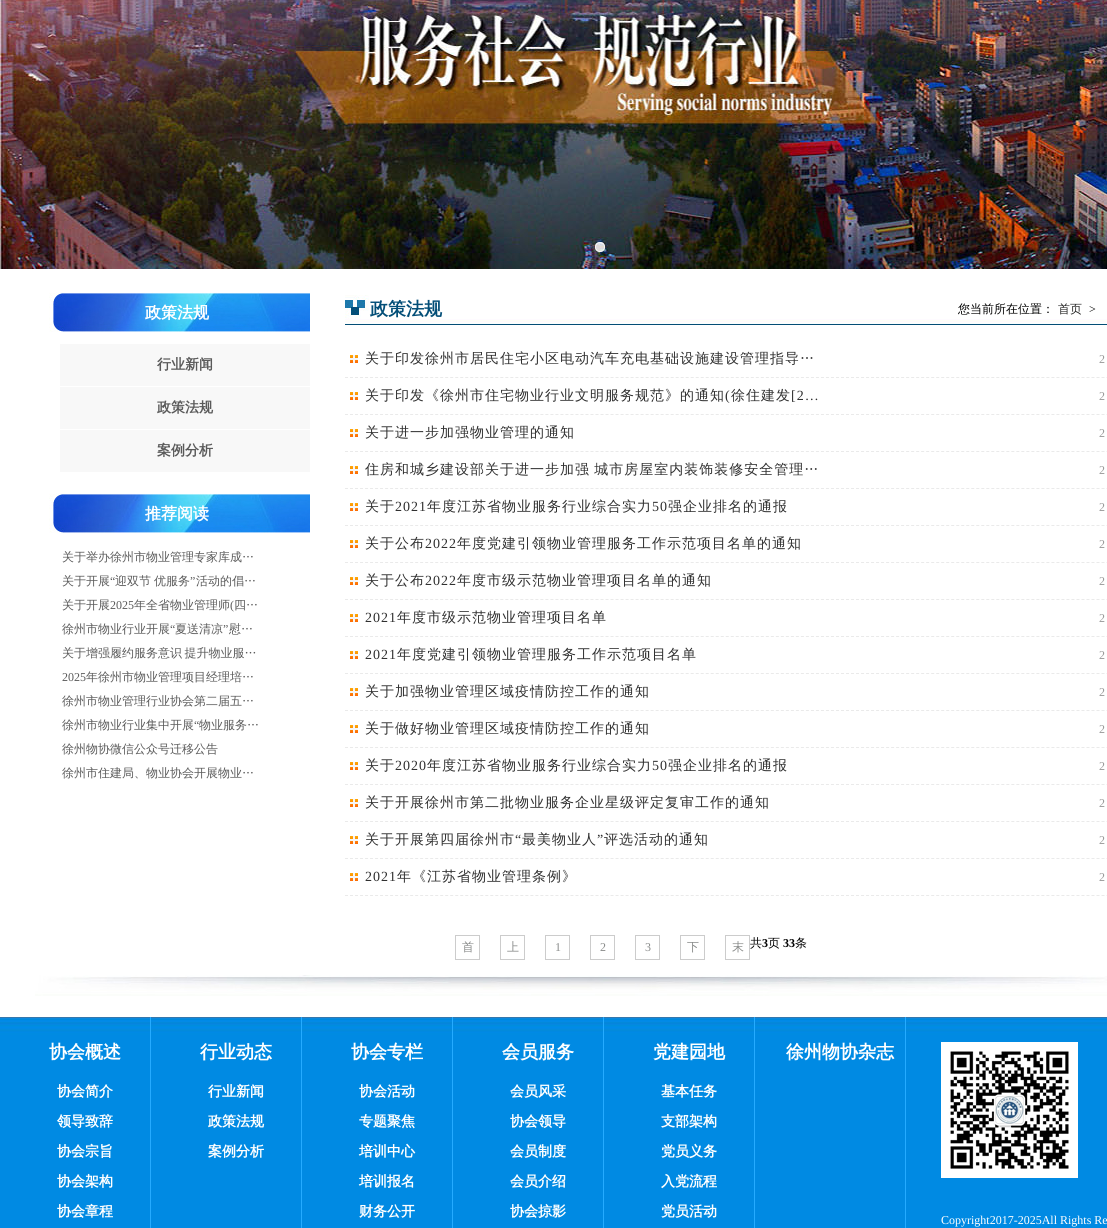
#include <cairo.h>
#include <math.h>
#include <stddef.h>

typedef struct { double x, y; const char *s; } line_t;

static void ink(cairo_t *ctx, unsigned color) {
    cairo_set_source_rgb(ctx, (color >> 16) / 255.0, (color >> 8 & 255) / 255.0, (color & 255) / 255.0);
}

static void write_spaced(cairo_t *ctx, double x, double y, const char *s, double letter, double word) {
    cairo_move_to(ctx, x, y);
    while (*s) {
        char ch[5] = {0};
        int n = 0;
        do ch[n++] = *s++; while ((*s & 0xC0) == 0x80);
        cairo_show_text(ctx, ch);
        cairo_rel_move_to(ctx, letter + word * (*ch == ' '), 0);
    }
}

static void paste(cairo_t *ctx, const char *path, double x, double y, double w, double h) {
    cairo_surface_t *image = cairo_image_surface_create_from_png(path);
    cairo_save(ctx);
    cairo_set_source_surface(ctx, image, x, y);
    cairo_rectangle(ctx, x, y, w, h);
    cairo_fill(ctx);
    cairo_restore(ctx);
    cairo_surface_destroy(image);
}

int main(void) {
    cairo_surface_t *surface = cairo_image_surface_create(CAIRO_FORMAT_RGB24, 1107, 1228);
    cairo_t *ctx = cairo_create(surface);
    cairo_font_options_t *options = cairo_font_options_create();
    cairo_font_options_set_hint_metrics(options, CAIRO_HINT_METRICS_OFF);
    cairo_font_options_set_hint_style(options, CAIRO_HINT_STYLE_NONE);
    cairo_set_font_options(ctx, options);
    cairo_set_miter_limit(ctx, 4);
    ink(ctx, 0xFFFFFF);
    cairo_paint(ctx);
    paste(ctx, "media/1.png", 0, 0, 1107, 269);
    cairo_set_source_rgba(ctx, 1, 1, 1, 0.8);
    cairo_arc(ctx, 600, 247, 5, 0, 2 * M_PI);
    cairo_fill(ctx);
    cairo_arc(ctx, 600, 247, 4.5, 0, 2 * M_PI);
    cairo_set_line_width(ctx, 1);
    cairo_stroke(ctx);
    paste(ctx, "media/2.png", 49, 292, 261, 40);
    cairo_select_font_face(ctx, "WenQuanYi Zen Hei", CAIRO_FONT_SLANT_NORMAL, CAIRO_FONT_WEIGHT_BOLD);
    cairo_set_font_size(ctx, 16);
    ink(ctx, 0xFFFFFF);
    cairo_move_to(ctx, 145, 318);
    cairo_show_text(ctx, "政策法规");
    ink(ctx, 0xF8F8F8);
    cairo_rectangle(ctx, 60, 344, 250, 42);
    cairo_fill(ctx);
    cairo_set_font_size(ctx, 14);
    ink(ctx, 0x5A5A5A);
    cairo_move_to(ctx, 157, 369);
    cairo_show_text(ctx, "行业新闻");
    ink(ctx, 0xF8F8F8);
    cairo_rectangle(ctx, 60, 387, 250, 42);
    cairo_fill(ctx);
    ink(ctx, 0x5A5A5A);
    cairo_move_to(ctx, 157, 412);
    cairo_show_text(ctx, "政策法规");
    ink(ctx, 0xF8F8F8);
    cairo_rectangle(ctx, 60, 430, 250, 42);
    cairo_fill(ctx);
    ink(ctx, 0x5A5A5A);
    cairo_move_to(ctx, 157, 455);
    cairo_show_text(ctx, "案例分析");
    paste(ctx, "media/2.png", 49, 493, 261, 40);
    cairo_set_font_size(ctx, 16);
    ink(ctx, 0xFFFFFF);
    cairo_move_to(ctx, 145, 519);
    cairo_show_text(ctx, "推荐阅读");
    cairo_select_font_face(ctx, "WenQuanYi Zen Hei Medium", CAIRO_FONT_SLANT_NORMAL, CAIRO_FONT_WEIGHT_NORMAL);
    cairo_set_font_size(ctx, 12);
    ink(ctx, 0x5A5A5A);
    cairo_move_to(ctx, 62, 561);
    cairo_show_text(ctx, "关于举办徐州市物业管理专家库成…");
    cairo_move_to(ctx, 62, 585);
    cairo_show_text(ctx, "关于开展");
    cairo_select_font_face(ctx, "Liberation Serif", CAIRO_FONT_SLANT_NORMAL, CAIRO_FONT_WEIGHT_NORMAL);
    cairo_move_to(ctx, 110, 585);
    cairo_show_text(ctx, "“");
    cairo_select_font_face(ctx, "WenQuanYi Zen Hei Medium", CAIRO_FONT_SLANT_NORMAL, CAIRO_FONT_WEIGHT_NORMAL);
    cairo_move_to(ctx, 115, 585);
    cairo_show_text(ctx, "迎双节");
    cairo_move_to(ctx, 154, 585);
    cairo_show_text(ctx, "优服务");
    cairo_select_font_face(ctx, "Liberation Serif", CAIRO_FONT_SLANT_NORMAL, CAIRO_FONT_WEIGHT_NORMAL);
    cairo_move_to(ctx, 190, 585);
    cairo_show_text(ctx, "”");
    cairo_select_font_face(ctx, "WenQuanYi Zen Hei Medium", CAIRO_FONT_SLANT_NORMAL, CAIRO_FONT_WEIGHT_NORMAL);
    cairo_move_to(ctx, 196, 585);
    cairo_show_text(ctx, "活动的倡…");
    cairo_move_to(ctx, 62, 609);
    cairo_show_text(ctx, "关于开展");
    cairo_select_font_face(ctx, "Liberation Serif", CAIRO_FONT_SLANT_NORMAL, CAIRO_FONT_WEIGHT_NORMAL);
    cairo_move_to(ctx, 110, 609);
    cairo_show_text(ctx, "2025");
    cairo_select_font_face(ctx, "WenQuanYi Zen Hei Medium", CAIRO_FONT_SLANT_NORMAL, CAIRO_FONT_WEIGHT_NORMAL);
    cairo_move_to(ctx, 134, 609);
    cairo_show_text(ctx, "年全省物业管理师");
    cairo_select_font_face(ctx, "Liberation Serif", CAIRO_FONT_SLANT_NORMAL, CAIRO_FONT_WEIGHT_NORMAL);
    cairo_move_to(ctx, 230, 609);
    cairo_show_text(ctx, "(");
    cairo_select_font_face(ctx, "WenQuanYi Zen Hei Medium", CAIRO_FONT_SLANT_NORMAL, CAIRO_FONT_WEIGHT_NORMAL);
    cairo_move_to(ctx, 234, 609);
    cairo_show_text(ctx, "四…");
    cairo_move_to(ctx, 62, 633);
    cairo_show_text(ctx, "徐州市物业行业开展");
    cairo_select_font_face(ctx, "Liberation Serif", CAIRO_FONT_SLANT_NORMAL, CAIRO_FONT_WEIGHT_NORMAL);
    cairo_move_to(ctx, 170, 633);
    cairo_show_text(ctx, "“");
    cairo_select_font_face(ctx, "WenQuanYi Zen Hei Medium", CAIRO_FONT_SLANT_NORMAL, CAIRO_FONT_WEIGHT_NORMAL);
    cairo_move_to(ctx, 175, 633);
    cairo_show_text(ctx, "夏送清凉");
    cairo_select_font_face(ctx, "Liberation Serif", CAIRO_FONT_SLANT_NORMAL, CAIRO_FONT_WEIGHT_NORMAL);
    cairo_move_to(ctx, 223, 633);
    cairo_show_text(ctx, "”");
    cairo_select_font_face(ctx, "WenQuanYi Zen Hei Medium", CAIRO_FONT_SLANT_NORMAL, CAIRO_FONT_WEIGHT_NORMAL);
    cairo_move_to(ctx, 229, 633);
    cairo_show_text(ctx, "慰…");
    write_spaced(ctx, 62, 657, "关于增强履约服务意识 提升物业服…", 0, -1);
    cairo_select_font_face(ctx, "Liberation Serif", CAIRO_FONT_SLANT_NORMAL, CAIRO_FONT_WEIGHT_NORMAL);
    cairo_move_to(ctx, 62, 681);
    cairo_show_text(ctx, "2025");
    cairo_select_font_face(ctx, "WenQuanYi Zen Hei Medium", CAIRO_FONT_SLANT_NORMAL, CAIRO_FONT_WEIGHT_NORMAL);
    {
        static const line_t items[] = {
            {86, 681, "年徐州市物业管理项目经理培…"},
            {62, 705, "徐州市物业管理行业协会第二届五…"},
            {62, 729, "徐州市物业行业集中开展"},
        };
        for (size_t i = 0; i < sizeof items / sizeof *items; i++) {
            cairo_move_to(ctx, items[i].x, items[i].y);
            cairo_show_text(ctx, items[i].s);
        }
    }
    cairo_select_font_face(ctx, "Liberation Serif", CAIRO_FONT_SLANT_NORMAL, CAIRO_FONT_WEIGHT_NORMAL);
    cairo_move_to(ctx, 194, 729);
    cairo_show_text(ctx, "“");
    cairo_select_font_face(ctx, "WenQuanYi Zen Hei Medium", CAIRO_FONT_SLANT_NORMAL, CAIRO_FONT_WEIGHT_NORMAL);
    {
        static const line_t items[] = {
            {199, 729, "物业服务…"},
            {62, 753, "徐州物协微信公众号迁移公告"},
            {62, 777, "徐州市住建局、物业协会开展物业…"},
        };
        for (size_t i = 0; i < sizeof items / sizeof *items; i++) {
            cairo_move_to(ctx, items[i].x, items[i].y);
            cairo_show_text(ctx, items[i].s);
        }
    }
    paste(ctx, "media/3.png", 345, 295, 762, 30);
    cairo_select_font_face(ctx, "WenQuanYi Zen Hei", CAIRO_FONT_SLANT_NORMAL, CAIRO_FONT_WEIGHT_BOLD);
    cairo_set_font_size(ctx, 18);
    ink(ctx, 0x034E78);
    cairo_move_to(ctx, 370, 315);
    cairo_show_text(ctx, "政策法规");
    cairo_select_font_face(ctx, "WenQuanYi Zen Hei Medium", CAIRO_FONT_SLANT_NORMAL, CAIRO_FONT_WEIGHT_NORMAL);
    cairo_set_font_size(ctx, 12);
    ink(ctx, 0x000000);
    cairo_move_to(ctx, 958, 313);
    cairo_show_text(ctx, "您当前所在位置：");
    ink(ctx, 0x282828);
    cairo_move_to(ctx, 1058, 313);
    cairo_show_text(ctx, "首页");
    cairo_select_font_face(ctx, "Liberation Serif", CAIRO_FONT_SLANT_NORMAL, CAIRO_FONT_WEIGHT_NORMAL);
    ink(ctx, 0x000000);
    cairo_move_to(ctx, 1089, 313);
    cairo_show_text(ctx, ">");
    paste(ctx, "media/4.png", 350, 355, 8, 8);
    cairo_new_path(ctx);
    cairo_move_to(ctx, 345, 377.5);
    cairo_line_to(ctx, 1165, 377.5);
    ink(ctx, 0xEAEAEA);
    cairo_set_dash(ctx, (double[]){3, 2.01}, 2, 0);
    cairo_stroke(ctx);
    cairo_select_font_face(ctx, "WenQuanYi Zen Hei Medium", CAIRO_FONT_SLANT_NORMAL, CAIRO_FONT_WEIGHT_NORMAL);
    cairo_set_font_size(ctx, 14);
    ink(ctx, 0x303030);
    write_spaced(ctx, 365, 363, "关于印发徐州市居民住宅小区电动汽车充电基础设施建设管理指导…", 1, 0);
    cairo_select_font_face(ctx, "Liberation Serif", CAIRO_FONT_SLANT_NORMAL, CAIRO_FONT_WEIGHT_NORMAL);
    cairo_set_font_size(ctx, 12);
    ink(ctx, 0x999999);
    write_spaced(ctx, 1099, 363, "2", 1, 0);
    paste(ctx, "media/4.png", 350, 392, 8, 8);
    cairo_new_path(ctx);
    cairo_move_to(ctx, 345, 414.5);
    cairo_line_to(ctx, 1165, 414.5);
    ink(ctx, 0xEAEAEA);
    cairo_stroke(ctx);
    cairo_select_font_face(ctx, "WenQuanYi Zen Hei Medium", CAIRO_FONT_SLANT_NORMAL, CAIRO_FONT_WEIGHT_NORMAL);
    cairo_set_font_size(ctx, 14);
    ink(ctx, 0x303030);
    write_spaced(ctx, 365, 400, "关于印发《徐州市住宅物业行业文明服务规范》的通知", 1, 0);
    cairo_select_font_face(ctx, "Liberation Serif", CAIRO_FONT_SLANT_NORMAL, CAIRO_FONT_WEIGHT_NORMAL);
    write_spaced(ctx, 725, 400, "(", 1, 0);
    cairo_select_font_face(ctx, "WenQuanYi Zen Hei Medium", CAIRO_FONT_SLANT_NORMAL, CAIRO_FONT_WEIGHT_NORMAL);
    write_spaced(ctx, 731, 400, "徐住建发", 1, 0);
    cairo_select_font_face(ctx, "Liberation Serif", CAIRO_FONT_SLANT_NORMAL, CAIRO_FONT_WEIGHT_NORMAL);
    write_spaced(ctx, 791, 400, "[2…", 1, 0);
    cairo_set_font_size(ctx, 12);
    ink(ctx, 0x999999);
    write_spaced(ctx, 1099, 400, "2", 1, 0);
    paste(ctx, "media/4.png", 350, 429, 8, 8);
    cairo_new_path(ctx);
    cairo_move_to(ctx, 345, 451.5);
    cairo_line_to(ctx, 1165, 451.5);
    ink(ctx, 0xEAEAEA);
    cairo_stroke(ctx);
    cairo_select_font_face(ctx, "WenQuanYi Zen Hei Medium", CAIRO_FONT_SLANT_NORMAL, CAIRO_FONT_WEIGHT_NORMAL);
    cairo_set_font_size(ctx, 14);
    ink(ctx, 0x303030);
    write_spaced(ctx, 365, 437, "关于进一步加强物业管理的通知", 1, 0);
    cairo_select_font_face(ctx, "Liberation Serif", CAIRO_FONT_SLANT_NORMAL, CAIRO_FONT_WEIGHT_NORMAL);
    cairo_set_font_size(ctx, 12);
    ink(ctx, 0x999999);
    write_spaced(ctx, 1099, 437, "2", 1, 0);
    paste(ctx, "media/4.png", 350, 466, 8, 8);
    cairo_new_path(ctx);
    cairo_move_to(ctx, 345, 488.5);
    cairo_line_to(ctx, 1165, 488.5);
    ink(ctx, 0xEAEAEA);
    cairo_stroke(ctx);
    cairo_select_font_face(ctx, "WenQuanYi Zen Hei Medium", CAIRO_FONT_SLANT_NORMAL, CAIRO_FONT_WEIGHT_NORMAL);
    cairo_set_font_size(ctx, 14);
    ink(ctx, 0x303030);
    write_spaced(ctx, 365, 474, "住房和城乡建设部关于进一步加强 城市房屋室内装饰装修安全管理…", 1, -1);
    cairo_select_font_face(ctx, "Liberation Serif", CAIRO_FONT_SLANT_NORMAL, CAIRO_FONT_WEIGHT_NORMAL);
    cairo_set_font_size(ctx, 12);
    ink(ctx, 0x999999);
    write_spaced(ctx, 1099, 474, "2", 1, 0);
    paste(ctx, "media/4.png", 350, 503, 8, 8);
    cairo_new_path(ctx);
    cairo_move_to(ctx, 345, 525.5);
    cairo_line_to(ctx, 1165, 525.5);
    ink(ctx, 0xEAEAEA);
    cairo_stroke(ctx);
    cairo_select_font_face(ctx, "WenQuanYi Zen Hei Medium", CAIRO_FONT_SLANT_NORMAL, CAIRO_FONT_WEIGHT_NORMAL);
    cairo_set_font_size(ctx, 14);
    ink(ctx, 0x303030);
    write_spaced(ctx, 365, 511, "关于", 1, 0);
    cairo_select_font_face(ctx, "Liberation Serif", CAIRO_FONT_SLANT_NORMAL, CAIRO_FONT_WEIGHT_NORMAL);
    write_spaced(ctx, 395, 511, "2021", 1, 0);
    cairo_select_font_face(ctx, "WenQuanYi Zen Hei Medium", CAIRO_FONT_SLANT_NORMAL, CAIRO_FONT_WEIGHT_NORMAL);
    write_spaced(ctx, 427, 511, "年度江苏省物业服务行业综合实力", 1, 0);
    cairo_select_font_face(ctx, "Liberation Serif", CAIRO_FONT_SLANT_NORMAL, CAIRO_FONT_WEIGHT_NORMAL);
    write_spaced(ctx, 652, 511, "50", 1, 0);
    cairo_select_font_face(ctx, "WenQuanYi Zen Hei Medium", CAIRO_FONT_SLANT_NORMAL, CAIRO_FONT_WEIGHT_NORMAL);
    write_spaced(ctx, 668, 511, "强企业排名的通报", 1, 0);
    cairo_select_font_face(ctx, "Liberation Serif", CAIRO_FONT_SLANT_NORMAL, CAIRO_FONT_WEIGHT_NORMAL);
    cairo_set_font_size(ctx, 12);
    ink(ctx, 0x999999);
    write_spaced(ctx, 1099, 511, "2", 1, 0);
    paste(ctx, "media/4.png", 350, 540, 8, 8);
    cairo_new_path(ctx);
    cairo_move_to(ctx, 345, 562.5);
    cairo_line_to(ctx, 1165, 562.5);
    ink(ctx, 0xEAEAEA);
    cairo_stroke(ctx);
    cairo_select_font_face(ctx, "WenQuanYi Zen Hei Medium", CAIRO_FONT_SLANT_NORMAL, CAIRO_FONT_WEIGHT_NORMAL);
    cairo_set_font_size(ctx, 14);
    ink(ctx, 0x303030);
    write_spaced(ctx, 365, 548, "关于公布", 1, 0);
    cairo_select_font_face(ctx, "Liberation Serif", CAIRO_FONT_SLANT_NORMAL, CAIRO_FONT_WEIGHT_NORMAL);
    write_spaced(ctx, 425, 548, "2022", 1, 0);
    cairo_select_font_face(ctx, "WenQuanYi Zen Hei Medium", CAIRO_FONT_SLANT_NORMAL, CAIRO_FONT_WEIGHT_NORMAL);
    write_spaced(ctx, 457, 548, "年度党建引领物业管理服务工作示范项目名单的通知", 1, 0);
    cairo_select_font_face(ctx, "Liberation Serif", CAIRO_FONT_SLANT_NORMAL, CAIRO_FONT_WEIGHT_NORMAL);
    cairo_set_font_size(ctx, 12);
    ink(ctx, 0x999999);
    write_spaced(ctx, 1099, 548, "2", 1, 0);
    paste(ctx, "media/4.png", 350, 577, 8, 8);
    cairo_new_path(ctx);
    cairo_move_to(ctx, 345, 599.5);
    cairo_line_to(ctx, 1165, 599.5);
    ink(ctx, 0xEAEAEA);
    cairo_stroke(ctx);
    cairo_select_font_face(ctx, "WenQuanYi Zen Hei Medium", CAIRO_FONT_SLANT_NORMAL, CAIRO_FONT_WEIGHT_NORMAL);
    cairo_set_font_size(ctx, 14);
    ink(ctx, 0x303030);
    write_spaced(ctx, 365, 585, "关于公布", 1, 0);
    cairo_select_font_face(ctx, "Liberation Serif", CAIRO_FONT_SLANT_NORMAL, CAIRO_FONT_WEIGHT_NORMAL);
    write_spaced(ctx, 425, 585, "2022", 1, 0);
    cairo_select_font_face(ctx, "WenQuanYi Zen Hei Medium", CAIRO_FONT_SLANT_NORMAL, CAIRO_FONT_WEIGHT_NORMAL);
    write_spaced(ctx, 457, 585, "年度市级示范物业管理项目名单的通知", 1, 0);
    cairo_select_font_face(ctx, "Liberation Serif", CAIRO_FONT_SLANT_NORMAL, CAIRO_FONT_WEIGHT_NORMAL);
    cairo_set_font_size(ctx, 12);
    ink(ctx, 0x999999);
    write_spaced(ctx, 1099, 585, "2", 1, 0);
    paste(ctx, "media/4.png", 350, 614, 8, 8);
    cairo_new_path(ctx);
    cairo_move_to(ctx, 345, 636.5);
    cairo_line_to(ctx, 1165, 636.5);
    ink(ctx, 0xEAEAEA);
    cairo_stroke(ctx);
    cairo_set_font_size(ctx, 14);
    ink(ctx, 0x303030);
    write_spaced(ctx, 365, 622, "2021", 1, 0);
    cairo_select_font_face(ctx, "WenQuanYi Zen Hei Medium", CAIRO_FONT_SLANT_NORMAL, CAIRO_FONT_WEIGHT_NORMAL);
    write_spaced(ctx, 397, 622, "年度市级示范物业管理项目名单", 1, 0);
    cairo_select_font_face(ctx, "Liberation Serif", CAIRO_FONT_SLANT_NORMAL, CAIRO_FONT_WEIGHT_NORMAL);
    cairo_set_font_size(ctx, 12);
    ink(ctx, 0x999999);
    write_spaced(ctx, 1099, 622, "2", 1, 0);
    paste(ctx, "media/4.png", 350, 651, 8, 8);
    cairo_new_path(ctx);
    cairo_move_to(ctx, 345, 673.5);
    cairo_line_to(ctx, 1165, 673.5);
    ink(ctx, 0xEAEAEA);
    cairo_stroke(ctx);
    cairo_set_font_size(ctx, 14);
    ink(ctx, 0x303030);
    write_spaced(ctx, 365, 659, "2021", 1, 0);
    cairo_select_font_face(ctx, "WenQuanYi Zen Hei Medium", CAIRO_FONT_SLANT_NORMAL, CAIRO_FONT_WEIGHT_NORMAL);
    write_spaced(ctx, 397, 659, "年度党建引领物业管理服务工作示范项目名单", 1, 0);
    cairo_select_font_face(ctx, "Liberation Serif", CAIRO_FONT_SLANT_NORMAL, CAIRO_FONT_WEIGHT_NORMAL);
    cairo_set_font_size(ctx, 12);
    ink(ctx, 0x999999);
    write_spaced(ctx, 1099, 659, "2", 1, 0);
    paste(ctx, "media/4.png", 350, 688, 8, 8);
    cairo_new_path(ctx);
    cairo_move_to(ctx, 345, 710.5);
    cairo_line_to(ctx, 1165, 710.5);
    ink(ctx, 0xEAEAEA);
    cairo_stroke(ctx);
    cairo_select_font_face(ctx, "WenQuanYi Zen Hei Medium", CAIRO_FONT_SLANT_NORMAL, CAIRO_FONT_WEIGHT_NORMAL);
    cairo_set_font_size(ctx, 14);
    ink(ctx, 0x303030);
    write_spaced(ctx, 365, 696, "关于加强物业管理区域疫情防控工作的通知", 1, 0);
    cairo_select_font_face(ctx, "Liberation Serif", CAIRO_FONT_SLANT_NORMAL, CAIRO_FONT_WEIGHT_NORMAL);
    cairo_set_font_size(ctx, 12);
    ink(ctx, 0x999999);
    write_spaced(ctx, 1099, 696, "2", 1, 0);
    paste(ctx, "media/4.png", 350, 725, 8, 8);
    cairo_new_path(ctx);
    cairo_move_to(ctx, 345, 747.5);
    cairo_line_to(ctx, 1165, 747.5);
    ink(ctx, 0xEAEAEA);
    cairo_stroke(ctx);
    cairo_select_font_face(ctx, "WenQuanYi Zen Hei Medium", CAIRO_FONT_SLANT_NORMAL, CAIRO_FONT_WEIGHT_NORMAL);
    cairo_set_font_size(ctx, 14);
    ink(ctx, 0x303030);
    write_spaced(ctx, 365, 733, "关于做好物业管理区域疫情防控工作的通知", 1, 0);
    cairo_select_font_face(ctx, "Liberation Serif", CAIRO_FONT_SLANT_NORMAL, CAIRO_FONT_WEIGHT_NORMAL);
    cairo_set_font_size(ctx, 12);
    ink(ctx, 0x999999);
    write_spaced(ctx, 1099, 733, "2", 1, 0);
    paste(ctx, "media/4.png", 350, 762, 8, 8);
    cairo_new_path(ctx);
    cairo_move_to(ctx, 345, 784.5);
    cairo_line_to(ctx, 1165, 784.5);
    ink(ctx, 0xEAEAEA);
    cairo_stroke(ctx);
    cairo_select_font_face(ctx, "WenQuanYi Zen Hei Medium", CAIRO_FONT_SLANT_NORMAL, CAIRO_FONT_WEIGHT_NORMAL);
    cairo_set_font_size(ctx, 14);
    ink(ctx, 0x303030);
    write_spaced(ctx, 365, 770, "关于", 1, 0);
    cairo_select_font_face(ctx, "Liberation Serif", CAIRO_FONT_SLANT_NORMAL, CAIRO_FONT_WEIGHT_NORMAL);
    write_spaced(ctx, 395, 770, "2020", 1, 0);
    cairo_select_font_face(ctx, "WenQuanYi Zen Hei Medium", CAIRO_FONT_SLANT_NORMAL, CAIRO_FONT_WEIGHT_NORMAL);
    write_spaced(ctx, 427, 770, "年度江苏省物业服务行业综合实力", 1, 0);
    cairo_select_font_face(ctx, "Liberation Serif", CAIRO_FONT_SLANT_NORMAL, CAIRO_FONT_WEIGHT_NORMAL);
    write_spaced(ctx, 652, 770, "50", 1, 0);
    cairo_select_font_face(ctx, "WenQuanYi Zen Hei Medium", CAIRO_FONT_SLANT_NORMAL, CAIRO_FONT_WEIGHT_NORMAL);
    write_spaced(ctx, 668, 770, "强企业排名的通报", 1, 0);
    cairo_select_font_face(ctx, "Liberation Serif", CAIRO_FONT_SLANT_NORMAL, CAIRO_FONT_WEIGHT_NORMAL);
    cairo_set_font_size(ctx, 12);
    ink(ctx, 0x999999);
    write_spaced(ctx, 1099, 770, "2", 1, 0);
    paste(ctx, "media/4.png", 350, 799, 8, 8);
    cairo_new_path(ctx);
    cairo_move_to(ctx, 345, 821.5);
    cairo_line_to(ctx, 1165, 821.5);
    ink(ctx, 0xEAEAEA);
    cairo_stroke(ctx);
    cairo_select_font_face(ctx, "WenQuanYi Zen Hei Medium", CAIRO_FONT_SLANT_NORMAL, CAIRO_FONT_WEIGHT_NORMAL);
    cairo_set_font_size(ctx, 14);
    ink(ctx, 0x303030);
    write_spaced(ctx, 365, 807, "关于开展徐州市第二批物业服务企业星级评定复审工作的通知", 1, 0);
    cairo_select_font_face(ctx, "Liberation Serif", CAIRO_FONT_SLANT_NORMAL, CAIRO_FONT_WEIGHT_NORMAL);
    cairo_set_font_size(ctx, 12);
    ink(ctx, 0x999999);
    write_spaced(ctx, 1099, 807, "2", 1, 0);
    paste(ctx, "media/4.png", 350, 836, 8, 8);
    cairo_new_path(ctx);
    cairo_move_to(ctx, 345, 858.5);
    cairo_line_to(ctx, 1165, 858.5);
    ink(ctx, 0xEAEAEA);
    cairo_stroke(ctx);
    cairo_select_font_face(ctx, "WenQuanYi Zen Hei Medium", CAIRO_FONT_SLANT_NORMAL, CAIRO_FONT_WEIGHT_NORMAL);
    cairo_set_font_size(ctx, 14);
    ink(ctx, 0x303030);
    write_spaced(ctx, 365, 844, "关于开展第四届徐州市", 1, 0);
    cairo_select_font_face(ctx, "Liberation Serif", CAIRO_FONT_SLANT_NORMAL, CAIRO_FONT_WEIGHT_NORMAL);
    write_spaced(ctx, 515, 844, "“", 1, 0);
    cairo_select_font_face(ctx, "WenQuanYi Zen Hei Medium", CAIRO_FONT_SLANT_NORMAL, CAIRO_FONT_WEIGHT_NORMAL);
    write_spaced(ctx, 522, 844, "最美物业人", 1, 0);
    cairo_select_font_face(ctx, "Liberation Serif", CAIRO_FONT_SLANT_NORMAL, CAIRO_FONT_WEIGHT_NORMAL);
    write_spaced(ctx, 597, 844, "”", 1, 0);
    cairo_select_font_face(ctx, "WenQuanYi Zen Hei Medium", CAIRO_FONT_SLANT_NORMAL, CAIRO_FONT_WEIGHT_NORMAL);
    write_spaced(ctx, 604, 844, "评选活动的通知", 1, 0);
    cairo_select_font_face(ctx, "Liberation Serif", CAIRO_FONT_SLANT_NORMAL, CAIRO_FONT_WEIGHT_NORMAL);
    cairo_set_font_size(ctx, 12);
    ink(ctx, 0x999999);
    write_spaced(ctx, 1099, 844, "2", 1, 0);
    paste(ctx, "media/4.png", 350, 873, 8, 8);
    cairo_new_path(ctx);
    cairo_move_to(ctx, 345, 895.5);
    cairo_line_to(ctx, 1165, 895.5);
    ink(ctx, 0xEAEAEA);
    cairo_stroke(ctx);
    cairo_set_font_size(ctx, 14);
    ink(ctx, 0x303030);
    write_spaced(ctx, 365, 881, "2021", 1, 0);
    cairo_select_font_face(ctx, "WenQuanYi Zen Hei Medium", CAIRO_FONT_SLANT_NORMAL, CAIRO_FONT_WEIGHT_NORMAL);
    write_spaced(ctx, 397, 881, "年《江苏省物业管理条例》", 1, 0);
    cairo_select_font_face(ctx, "Liberation Serif", CAIRO_FONT_SLANT_NORMAL, CAIRO_FONT_WEIGHT_NORMAL);
    cairo_set_font_size(ctx, 12);
    ink(ctx, 0x999999);
    write_spaced(ctx, 1099, 881, "2", 1, 0);
    cairo_rectangle(ctx, 455.5, 935.5, 24, 24);
    ink(ctx, 0xCCCCCC);
    cairo_set_dash(ctx, NULL, 0, 0);
    cairo_stroke(ctx);
    cairo_select_font_face(ctx, "WenQuanYi Zen Hei Medium", CAIRO_FONT_SLANT_NORMAL, CAIRO_FONT_WEIGHT_NORMAL);
    ink(ctx, 0x8A8C8B);
    cairo_move_to(ctx, 462, 951);
    cairo_show_text(ctx, "首");
    cairo_rectangle(ctx, 500.5, 935.5, 24, 24);
    ink(ctx, 0xCCCCCC);
    cairo_stroke(ctx);
    ink(ctx, 0x8A8C8B);
    cairo_move_to(ctx, 507, 951);
    cairo_show_text(ctx, "上");
    cairo_rectangle(ctx, 545.5, 935.5, 24, 24);
    ink(ctx, 0xCCCCCC);
    cairo_stroke(ctx);
    cairo_select_font_face(ctx, "Liberation Serif", CAIRO_FONT_SLANT_NORMAL, CAIRO_FONT_WEIGHT_NORMAL);
    ink(ctx, 0x8A8C8B);
    cairo_move_to(ctx, 555, 951);
    cairo_show_text(ctx, "1");
    cairo_rectangle(ctx, 590.5, 935.5, 24, 24);
    ink(ctx, 0xCCCCCC);
    cairo_stroke(ctx);
    ink(ctx, 0x8A8C8B);
    cairo_move_to(ctx, 600, 951);
    cairo_show_text(ctx, "2");
    cairo_rectangle(ctx, 635.5, 935.5, 24, 24);
    ink(ctx, 0xCCCCCC);
    cairo_stroke(ctx);
    ink(ctx, 0x8A8C8B);
    cairo_move_to(ctx, 645, 951);
    cairo_show_text(ctx, "3");
    cairo_rectangle(ctx, 680.5, 935.5, 24, 24);
    ink(ctx, 0xCCCCCC);
    cairo_stroke(ctx);
    cairo_select_font_face(ctx, "WenQuanYi Zen Hei Medium", CAIRO_FONT_SLANT_NORMAL, CAIRO_FONT_WEIGHT_NORMAL);
    ink(ctx, 0x8A8C8B);
    cairo_move_to(ctx, 687, 951);
    cairo_show_text(ctx, "下");
    cairo_rectangle(ctx, 725.5, 935.5, 24, 24);
    ink(ctx, 0xCCCCCC);
    cairo_stroke(ctx);
    ink(ctx, 0x8A8C8B);
    cairo_move_to(ctx, 732, 951);
    cairo_show_text(ctx, "末");
    ink(ctx, 0x000000);
    cairo_move_to(ctx, 750, 947);
    cairo_show_text(ctx, "共");
    cairo_select_font_face(ctx, "Liberation Serif", CAIRO_FONT_SLANT_NORMAL, CAIRO_FONT_WEIGHT_BOLD);
    cairo_move_to(ctx, 762, 947);
    cairo_show_text(ctx, "3");
    cairo_select_font_face(ctx, "WenQuanYi Zen Hei Medium", CAIRO_FONT_SLANT_NORMAL, CAIRO_FONT_WEIGHT_NORMAL);
    cairo_move_to(ctx, 768, 947);
    cairo_show_text(ctx, "页");
    cairo_select_font_face(ctx, "Liberation Serif", CAIRO_FONT_SLANT_NORMAL, CAIRO_FONT_WEIGHT_BOLD);
    cairo_move_to(ctx, 783, 947);
    cairo_show_text(ctx, "33");
    cairo_select_font_face(ctx, "WenQuanYi Zen Hei Medium", CAIRO_FONT_SLANT_NORMAL, CAIRO_FONT_WEIGHT_NORMAL);
    cairo_move_to(ctx, 795, 947);
    cairo_show_text(ctx, "条");
    paste(ctx, "media/5.png", 35, 975, 1072, 21);
    paste(ctx, "media/6.png", 0, 1017, 1107, 211);
    ink(ctx, 0x25ABFF);
    cairo_rectangle(ctx, 150, 1017, 1, 211);
    cairo_fill(ctx);
    cairo_select_font_face(ctx, "WenQuanYi Zen Hei", CAIRO_FONT_SLANT_NORMAL, CAIRO_FONT_WEIGHT_BOLD);
    cairo_set_font_size(ctx, 18);
    ink(ctx, 0xFFFFFF);
    cairo_move_to(ctx, 49, 1058);
    cairo_show_text(ctx, "协会概述");
    cairo_set_font_size(ctx, 14);
    {
        static const line_t items[] = {
            {57, 1096, "协会简介"},
            {57, 1126, "领导致辞"},
            {57, 1156, "协会宗旨"},
            {57, 1186, "协会架构"},
            {57, 1216, "协会章程"},
        };
        for (size_t i = 0; i < sizeof items / sizeof *items; i++) {
            cairo_move_to(ctx, items[i].x, items[i].y);
            cairo_show_text(ctx, items[i].s);
        }
    }
    ink(ctx, 0x25ABFF);
    cairo_rectangle(ctx, 301, 1017, 1, 211);
    cairo_fill(ctx);
    cairo_set_font_size(ctx, 18);
    ink(ctx, 0xFFFFFF);
    cairo_move_to(ctx, 200, 1058);
    cairo_show_text(ctx, "行业动态");
    cairo_set_font_size(ctx, 14);
    {
        static const line_t items[] = {
            {208, 1096, "行业新闻"},
            {208, 1126, "政策法规"},
            {208, 1156, "案例分析"},
        };
        for (size_t i = 0; i < sizeof items / sizeof *items; i++) {
            cairo_move_to(ctx, items[i].x, items[i].y);
            cairo_show_text(ctx, items[i].s);
        }
    }
    ink(ctx, 0x25ABFF);
    cairo_rectangle(ctx, 452, 1017, 1, 211);
    cairo_fill(ctx);
    cairo_set_font_size(ctx, 18);
    ink(ctx, 0xFFFFFF);
    cairo_move_to(ctx, 351, 1058);
    cairo_show_text(ctx, "协会专栏");
    cairo_set_font_size(ctx, 14);
    {
        static const line_t items[] = {
            {359, 1096, "协会活动"},
            {359, 1126, "专题聚焦"},
            {359, 1156, "培训中心"},
            {359, 1186, "培训报名"},
            {359, 1216, "财务公开"},
        };
        for (size_t i = 0; i < sizeof items / sizeof *items; i++) {
            cairo_move_to(ctx, items[i].x, items[i].y);
            cairo_show_text(ctx, items[i].s);
        }
    }
    ink(ctx, 0x25ABFF);
    cairo_rectangle(ctx, 603, 1017, 1, 211);
    cairo_fill(ctx);
    cairo_set_font_size(ctx, 18);
    ink(ctx, 0xFFFFFF);
    cairo_move_to(ctx, 502, 1058);
    cairo_show_text(ctx, "会员服务");
    cairo_set_font_size(ctx, 14);
    {
        static const line_t items[] = {
            {510, 1096, "会员风采"},
            {510, 1126, "协会领导"},
            {510, 1156, "会员制度"},
            {510, 1186, "会员介绍"},
            {510, 1216, "协会掠影"},
        };
        for (size_t i = 0; i < sizeof items / sizeof *items; i++) {
            cairo_move_to(ctx, items[i].x, items[i].y);
            cairo_show_text(ctx, items[i].s);
        }
    }
    ink(ctx, 0x25ABFF);
    cairo_rectangle(ctx, 754, 1017, 1, 211);
    cairo_fill(ctx);
    cairo_set_font_size(ctx, 18);
    ink(ctx, 0xFFFFFF);
    cairo_move_to(ctx, 653, 1058);
    cairo_show_text(ctx, "党建园地");
    cairo_set_font_size(ctx, 14);
    {
        static const line_t items[] = {
            {661, 1096, "基本任务"},
            {661, 1126, "支部架构"},
            {661, 1156, "党员义务"},
            {661, 1186, "入党流程"},
            {661, 1216, "党员活动"},
        };
        for (size_t i = 0; i < sizeof items / sizeof *items; i++) {
            cairo_move_to(ctx, items[i].x, items[i].y);
            cairo_show_text(ctx, items[i].s);
        }
    }
    ink(ctx, 0x25ABFF);
    cairo_rectangle(ctx, 905, 1017, 1, 211);
    cairo_fill(ctx);
    cairo_set_font_size(ctx, 18);
    ink(ctx, 0xFFFFFF);
    cairo_move_to(ctx, 786, 1058);
    cairo_show_text(ctx, "徐州物协杂志");
    paste(ctx, "media/7.png", 941, 1042, 137, 136);
    cairo_select_font_face(ctx, "Liberation Serif", CAIRO_FONT_SLANT_NORMAL, CAIRO_FONT_WEIGHT_NORMAL);
    cairo_set_font_size(ctx, 12);
    cairo_move_to(ctx, 941, 1224);
    cairo_show_text(ctx, "Copyright2017-2025All Rights Re");
    cairo_surface_write_to_png(surface, "image.png");
    cairo_font_options_destroy(options);
    cairo_destroy(ctx);
    cairo_surface_destroy(surface);
    return 0;
}
